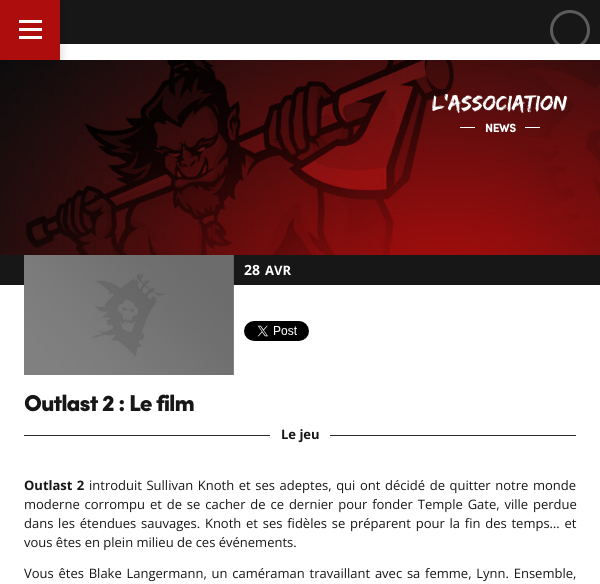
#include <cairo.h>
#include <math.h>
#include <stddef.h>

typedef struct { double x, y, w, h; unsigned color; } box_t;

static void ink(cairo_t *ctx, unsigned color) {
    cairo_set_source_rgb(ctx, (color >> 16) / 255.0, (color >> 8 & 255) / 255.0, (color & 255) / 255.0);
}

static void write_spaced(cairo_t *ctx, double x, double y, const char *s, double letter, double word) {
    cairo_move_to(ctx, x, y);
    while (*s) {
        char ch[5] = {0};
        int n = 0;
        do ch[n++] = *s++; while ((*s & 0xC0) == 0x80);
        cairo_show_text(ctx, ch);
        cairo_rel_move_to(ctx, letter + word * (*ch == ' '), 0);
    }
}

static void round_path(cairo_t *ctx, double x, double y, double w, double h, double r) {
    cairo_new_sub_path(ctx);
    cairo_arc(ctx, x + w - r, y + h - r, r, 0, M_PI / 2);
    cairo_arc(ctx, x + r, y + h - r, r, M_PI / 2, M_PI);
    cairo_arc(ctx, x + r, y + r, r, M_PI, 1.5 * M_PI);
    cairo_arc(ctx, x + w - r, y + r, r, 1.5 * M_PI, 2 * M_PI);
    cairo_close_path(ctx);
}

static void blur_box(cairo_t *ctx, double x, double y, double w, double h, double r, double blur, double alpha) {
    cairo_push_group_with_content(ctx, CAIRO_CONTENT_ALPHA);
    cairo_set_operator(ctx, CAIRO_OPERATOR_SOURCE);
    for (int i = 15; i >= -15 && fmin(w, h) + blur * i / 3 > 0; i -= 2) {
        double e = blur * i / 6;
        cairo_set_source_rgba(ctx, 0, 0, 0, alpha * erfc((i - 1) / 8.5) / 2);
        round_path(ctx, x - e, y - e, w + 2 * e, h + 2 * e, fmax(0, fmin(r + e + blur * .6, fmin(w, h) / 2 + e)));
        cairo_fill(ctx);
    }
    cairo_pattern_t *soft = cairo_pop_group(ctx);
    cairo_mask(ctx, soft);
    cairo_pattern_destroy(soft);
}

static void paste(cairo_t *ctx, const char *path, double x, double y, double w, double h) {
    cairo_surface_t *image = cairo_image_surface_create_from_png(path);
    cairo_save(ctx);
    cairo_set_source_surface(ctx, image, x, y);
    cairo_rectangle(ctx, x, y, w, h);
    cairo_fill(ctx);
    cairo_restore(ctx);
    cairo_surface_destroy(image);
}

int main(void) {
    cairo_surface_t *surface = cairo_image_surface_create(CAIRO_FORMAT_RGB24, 600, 584);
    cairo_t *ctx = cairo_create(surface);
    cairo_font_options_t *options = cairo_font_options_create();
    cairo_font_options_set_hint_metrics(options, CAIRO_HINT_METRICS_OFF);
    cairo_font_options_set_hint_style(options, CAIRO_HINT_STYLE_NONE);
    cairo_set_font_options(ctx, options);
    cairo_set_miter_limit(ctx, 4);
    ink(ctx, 0xFFFFFF);
    cairo_paint(ctx);
    ink(ctx, 0x171717);
    cairo_rectangle(ctx, 60, 0, 540, 44);
    cairo_fill(ctx);
    paste(ctx, "media/1.png", 0, 60, 600, 195);
    ink(ctx, 0x000000);
    blur_box(ctx, 0, 0, 60, 60, 0, 5, 0.2);
    {
        static const box_t items[] = {
            {0, 0, 60, 60, 0xAE0D0D},
            {19, 28, 23, 3, 0xFFFFFF},
            {19, 20, 23, 3, 0xFFFFFF},
            {19, 36, 23, 3, 0xFFFFFF},
        };
        for (size_t i = 0; i < sizeof items / sizeof *items; i++) {
            ink(ctx, items[i].color);
            cairo_rectangle(ctx, items[i].x, items[i].y, items[i].w, items[i].h);
            cairo_fill(ctx);
        }
    }
    cairo_arc(ctx, 570, 30, 18.5, 0, 2 * M_PI);
    cairo_set_source_rgba(ctx, 1, 1, 1, 0.3);
    cairo_set_line_width(ctx, 3);
    cairo_stroke(ctx);
    cairo_select_font_face(ctx, "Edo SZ", CAIRO_FONT_SLANT_NORMAL, CAIRO_FONT_WEIGHT_NORMAL);
    cairo_set_font_size(ctx, 22);
    ink(ctx, 0xFFFFFF);
    cairo_move_to(ctx, 432, 110);
    cairo_show_text(ctx, "L'ASSOCIATION");
    cairo_rectangle(ctx, 460, 127, 15, 1);
    cairo_fill(ctx);
    cairo_select_font_face(ctx, "Sofia", CAIRO_FONT_SLANT_NORMAL, CAIRO_FONT_WEIGHT_BOLD);
    cairo_set_font_size(ctx, 12);
    write_spaced(ctx, 485, 132, "NEWS", -0.5, 0);
    cairo_rectangle(ctx, 525, 127, 15, 1);
    cairo_fill(ctx);
    ink(ctx, 0x171717);
    cairo_rectangle(ctx, 0, 255, 600, 30);
    cairo_fill(ctx);
    paste(ctx, "media/2.png", 24, 255, 210, 120);
    cairo_select_font_face(ctx, "Open Sans", CAIRO_FONT_SLANT_NORMAL, CAIRO_FONT_WEIGHT_BOLD);
    cairo_set_font_size(ctx, 14);
    ink(ctx, 0xFFFFFF);
    cairo_move_to(ctx, 244, 275);
    cairo_show_text(ctx, "28");
    cairo_set_font_size(ctx, 13);
    cairo_move_to(ctx, 265, 275);
    cairo_show_text(ctx, "AVR");
    paste(ctx, "media/3.png", 244, 321, 65, 20);
    cairo_select_font_face(ctx, "Sofia Black", CAIRO_FONT_SLANT_NORMAL, CAIRO_FONT_WEIGHT_NORMAL);
    cairo_set_font_size(ctx, 23);
    ink(ctx, 0x171717);
    write_spaced(ctx, 24, 411, "Outlast 2 : Le film", -1, 0);
    ink(ctx, 0x2A2A2A);
    cairo_rectangle(ctx, 24, 435, 246, 1);
    cairo_fill(ctx);
    cairo_select_font_face(ctx, "Open Sans", CAIRO_FONT_SLANT_NORMAL, CAIRO_FONT_WEIGHT_BOLD);
    cairo_set_font_size(ctx, 13);
    ink(ctx, 0x171717);
    cairo_move_to(ctx, 281, 439);
    cairo_show_text(ctx, "Le jeu");
    ink(ctx, 0x2A2A2A);
    cairo_rectangle(ctx, 330, 435, 246, 1);
    cairo_fill(ctx);
    ink(ctx, 0x171717);
    write_spaced(ctx, 24, 490, "Outlast 2", 0, 1);
    cairo_select_font_face(ctx, "Open Sans", CAIRO_FONT_SLANT_NORMAL, CAIRO_FONT_WEIGHT_NORMAL);
    write_spaced(ctx, 89, 490, "introduit Sullivan Knoth et ses adeptes, qui ont décidé de quitter notre monde", 0, 1.25);
    write_spaced(ctx, 24, 509, "moderne corrompu et de se cacher de ce dernier pour fonder Temple Gate, ville perdue", 0, 1.5);
    write_spaced(ctx, 24, 528, "dans les étendues sauvages. Knoth et ses fidèles se préparent pour la fin des temps… et", 0, 1.4);
    cairo_move_to(ctx, 24, 547);
    cairo_show_text(ctx, "vous êtes en plein milieu de ces événements.");
    write_spaced(ctx, 24, 578, "Vous êtes Blake Langermann, un caméraman travaillant avec sa femme, Lynn. Ensemble,", 0, 1.4);
    cairo_surface_write_to_png(surface, "image.png");
    cairo_font_options_destroy(options);
    cairo_destroy(ctx);
    cairo_surface_destroy(surface);
    return 0;
}
